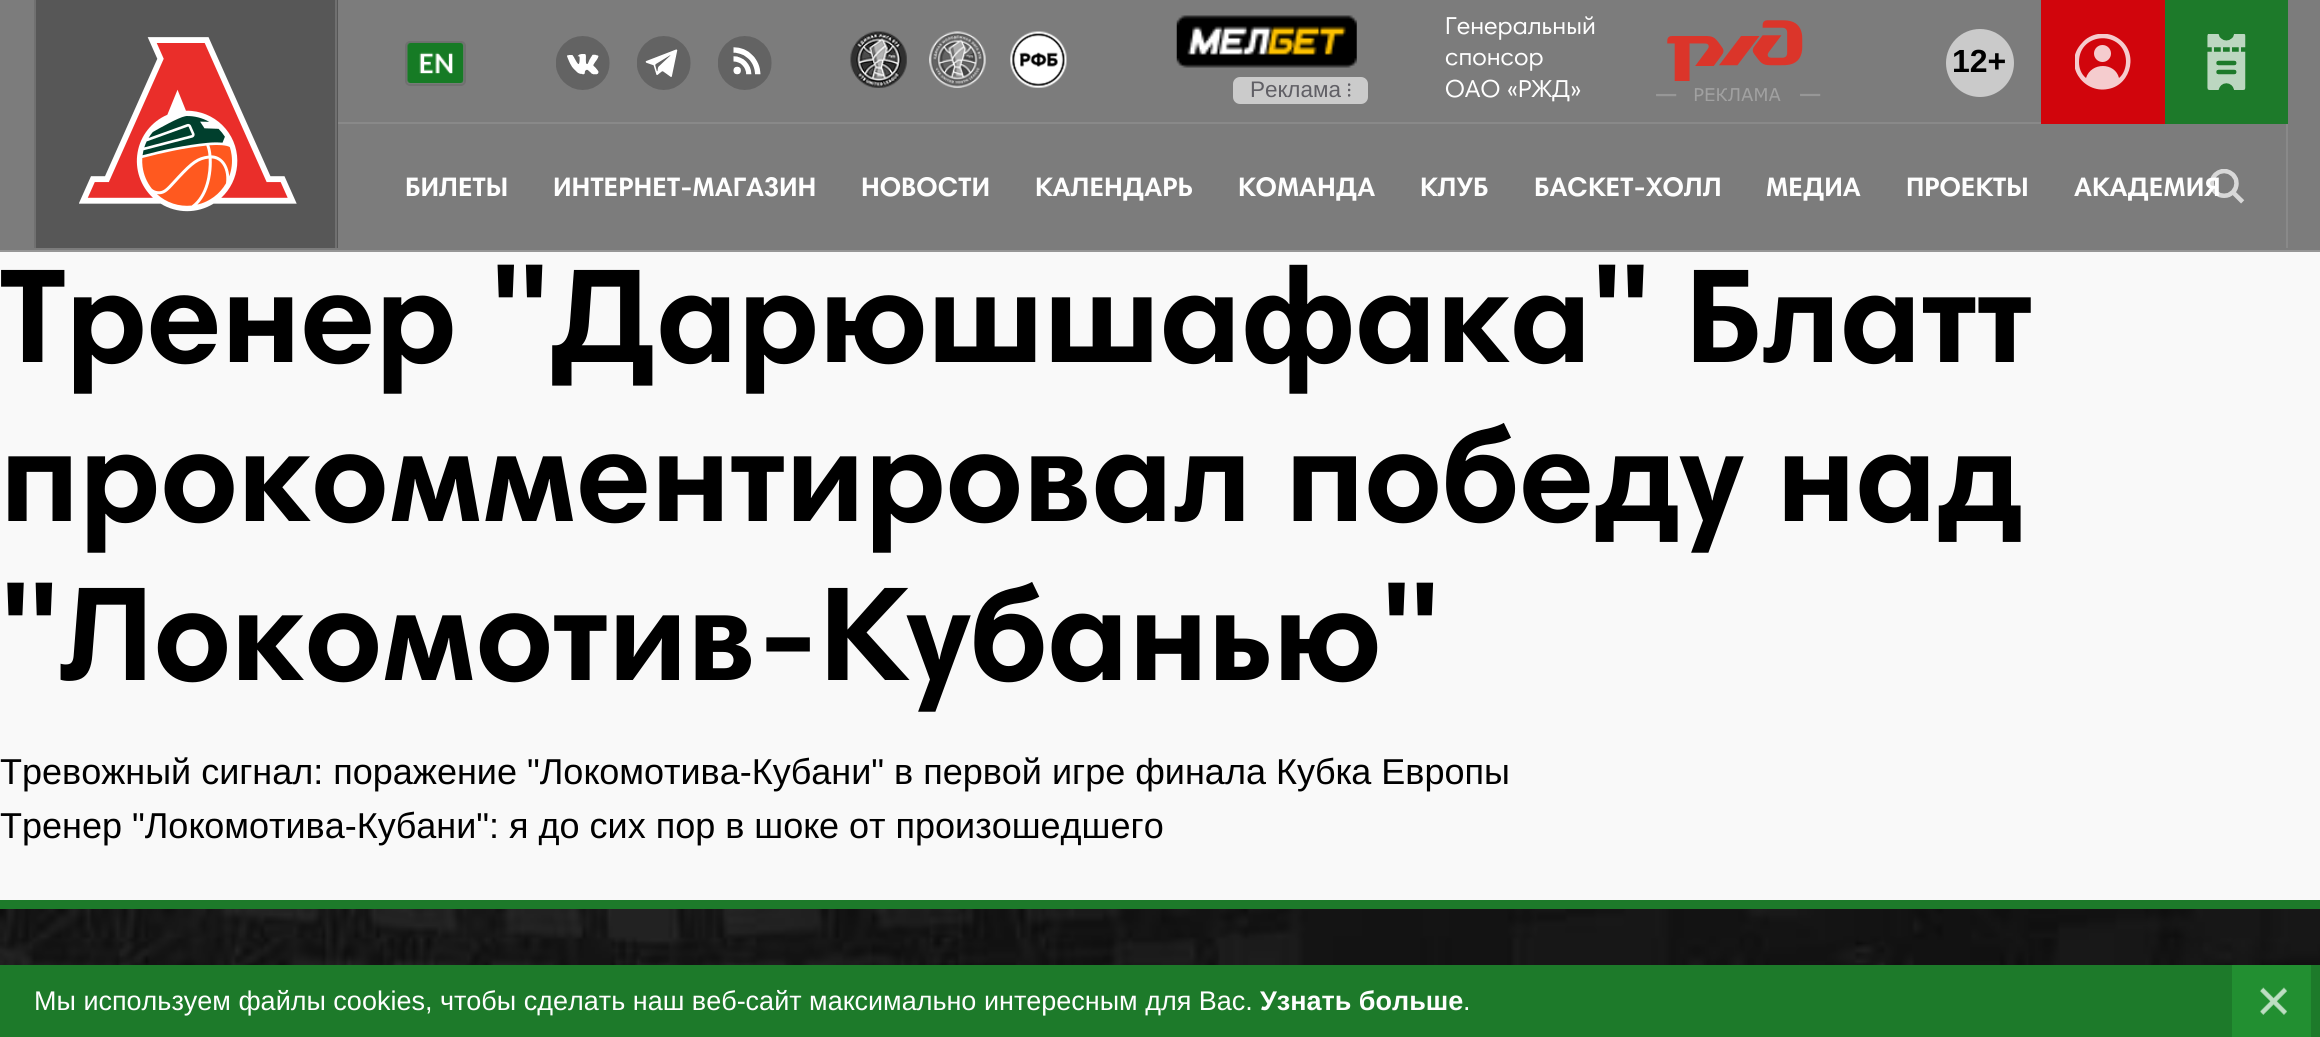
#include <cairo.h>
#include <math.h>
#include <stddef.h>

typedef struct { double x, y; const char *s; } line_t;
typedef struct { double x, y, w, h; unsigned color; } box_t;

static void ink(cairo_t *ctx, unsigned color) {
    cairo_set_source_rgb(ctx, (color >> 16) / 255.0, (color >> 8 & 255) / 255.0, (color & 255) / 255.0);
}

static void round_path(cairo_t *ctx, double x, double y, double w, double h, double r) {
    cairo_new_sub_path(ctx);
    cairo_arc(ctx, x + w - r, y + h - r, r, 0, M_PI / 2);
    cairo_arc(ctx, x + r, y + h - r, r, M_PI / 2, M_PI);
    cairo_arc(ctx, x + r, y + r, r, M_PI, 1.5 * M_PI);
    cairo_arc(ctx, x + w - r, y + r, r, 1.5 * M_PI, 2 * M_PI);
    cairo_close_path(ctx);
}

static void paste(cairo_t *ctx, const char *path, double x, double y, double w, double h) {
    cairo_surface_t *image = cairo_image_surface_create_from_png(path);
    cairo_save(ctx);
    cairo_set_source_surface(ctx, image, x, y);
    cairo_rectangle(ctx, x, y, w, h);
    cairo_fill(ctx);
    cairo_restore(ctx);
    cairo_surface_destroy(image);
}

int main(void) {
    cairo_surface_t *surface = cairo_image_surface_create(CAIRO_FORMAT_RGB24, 2320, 1037);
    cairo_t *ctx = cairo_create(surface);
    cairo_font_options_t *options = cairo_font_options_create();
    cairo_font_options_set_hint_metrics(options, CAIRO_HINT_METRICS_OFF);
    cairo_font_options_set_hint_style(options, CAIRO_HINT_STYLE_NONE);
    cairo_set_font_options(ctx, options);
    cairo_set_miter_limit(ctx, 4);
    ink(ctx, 0xF9F9F9);
    cairo_paint(ctx);
    {
        static const box_t items[] = {
            {0, 0, 2320, 250, 0x7C7C7C},
            {0, 250, 2320, 2, 0x969696},
            {36, 0, 302, 248, 0x575757},
            {335, 0, 2, 248, 0x707070},
            {34, 0, 2, 248, 0x707070},
        };
        for (size_t i = 0; i < sizeof items / sizeof *items; i++) {
            ink(ctx, items[i].color);
            cairo_rectangle(ctx, items[i].x, items[i].y, items[i].w, items[i].h);
            cairo_fill(ctx);
        }
    }
    paste(ctx, "media/1.png", 79, 37, 218, 175);
    ink(ctx, 0x898989);
    cairo_rectangle(ctx, 2286, 124, 2, 124);
    cairo_fill(ctx);
    cairo_rectangle(ctx, 338, 122, 1703, 2);
    cairo_fill(ctx);
    round_path(ctx, 406, 42, 59, 43, 4);
    ink(ctx, 0x707070);
    cairo_stroke(ctx);
    paste(ctx, "media/2.png", 407, 42, 57, 42);
    paste(ctx, "media/3.png", 556, 36, 54, 54);
    paste(ctx, "media/4.png", 637, 36, 54, 54);
    paste(ctx, "media/5.png", 718, 36, 54, 54);
    paste(ctx, "media/6.png", 850, 31, 57, 57);
    paste(ctx, "media/7.png", 929, 31, 57, 57);
    paste(ctx, "media/8.png", 1010, 31, 57, 57);
    cairo_select_font_face(ctx, "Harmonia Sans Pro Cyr", CAIRO_FONT_SLANT_NORMAL, CAIRO_FONT_WEIGHT_NORMAL);
    cairo_set_font_size(ctx, 24.75);
    ink(ctx, 0xFEFEFE);
    {
        static const line_t items[] = {
            {1445, 34, "Генеральный"},
            {1445, 65, "спонсор"},
            {1445, 97, "ОАО «РЖД»"},
        };
        for (size_t i = 0; i < sizeof items / sizeof *items; i++) {
            cairo_move_to(ctx, items[i].x, items[i].y);
            cairo_show_text(ctx, items[i].s);
        }
    }
    paste(ctx, "media/9.png", 1656, 20, 165, 81);
    ink(ctx, 0xCACACA);
    cairo_arc(ctx, 1980, 63, 34, 0, 2 * M_PI);
    cairo_fill(ctx);
    cairo_select_font_face(ctx, "Liberation Sans", CAIRO_FONT_SLANT_NORMAL, CAIRO_FONT_WEIGHT_BOLD);
    cairo_set_font_size(ctx, 32);
    ink(ctx, 0x000000);
    cairo_move_to(ctx, 1952, 72);
    cairo_show_text(ctx, "12+");
    ink(ctx, 0xD1050C);
    cairo_rectangle(ctx, 2041, 0, 124, 124);
    cairo_fill(ctx);
    cairo_save(ctx);
    cairo_rectangle(ctx, 2075, 34, 56, 56);
    cairo_clip(ctx);
    ink(ctx, 0xF5CCCE);
    cairo_new_path(ctx);
    cairo_move_to(ctx, 2108, 89);
    cairo_curve_to(ctx, 2132, 85, 2140, 50, 2116, 37);
    cairo_curve_to(ctx, 2111, 34, 2104, 33, 2098, 34);
    cairo_curve_to(ctx, 2092, 35, 2086, 38, 2082, 43);
    cairo_curve_to(ctx, 2062, 64, 2083, 94, 2108, 89);
    cairo_close_path(ctx);
    cairo_move_to(ctx, 2079, 62);
    cairo_curve_to(ctx, 2079, 31, 2125, 30, 2126, 61);
    cairo_curve_to(ctx, 2126, 67, 2124, 74, 2119, 78);
    cairo_curve_to(ctx, 2115, 62, 2091, 62, 2086, 78);
    cairo_curve_to(ctx, 2081, 74, 2079, 68, 2079, 62);
    cairo_close_path(ctx);
    cairo_fill(ctx);
    cairo_restore(ctx);
    ink(ctx, 0xF5CCCE);
    cairo_arc(ctx, 2102.5, 53.5, 8.5, 0, 2 * M_PI);
    cairo_fill(ctx);
    ink(ctx, 0x1D7A2A);
    cairo_rectangle(ctx, 2165, 0, 123, 124);
    cairo_fill(ctx);
    paste(ctx, "media/10.png", 2207, 34, 39, 56);
    paste(ctx, "media/11.png", 1176, 15, 181, 53);
    ink(ctx, 0xCBCBCB);
    round_path(ctx, 1233, 77, 135, 27, 7);
    cairo_fill(ctx);
    cairo_select_font_face(ctx, "Liberation Sans", CAIRO_FONT_SLANT_NORMAL, CAIRO_FONT_WEIGHT_NORMAL);
    cairo_set_font_size(ctx, 22.5);
    ink(ctx, 0x605F65);
    cairo_move_to(ctx, 1250, 97);
    cairo_show_text(ctx, "Реклама");
    paste(ctx, "media/12.png", 1348, 83, 3, 14);
    cairo_select_font_face(ctx, "Harmonia Sans Pro Cyr", CAIRO_FONT_SLANT_NORMAL, CAIRO_FONT_WEIGHT_BOLD);
    cairo_set_font_size(ctx, 27);
    ink(ctx, 0xFEFEFE);
    {
        static const line_t items[] = {
            {405, 196, "БИЛЕТЫ"},
            {553, 196, "ИНТЕРНЕТ-МАГАЗИН"},
            {861, 196, "НОВОСТИ"},
            {1035, 196, "КАЛЕНДАРЬ"},
            {1238, 196, "КОМАНДА"},
            {1420, 196, "КЛУБ"},
            {1534, 196, "БАСКЕТ-ХОЛЛ"},
            {1766, 196, "МЕДИА"},
            {1906, 196, "ПРОЕКТЫ"},
            {2074, 196, "АКАДЕМИЯ"},
        };
        for (size_t i = 0; i < sizeof items / sizeof *items; i++) {
            cairo_move_to(ctx, items[i].x, items[i].y);
            cairo_show_text(ctx, items[i].s);
        }
    }
    paste(ctx, "media/13.png", 2210, 169, 35, 35);
    cairo_set_font_size(ctx, 135);
    ink(ctx, 0x000000);
    {
        static const line_t items[] = {
            {0, 362, "Тренер \"Дарюшшафака\" Блатт"},
            {0, 521, "прокомментировал победу над"},
            {0, 680, "\"Локомотив-Кубанью\""},
        };
        for (size_t i = 0; i < sizeof items / sizeof *items; i++) {
            cairo_move_to(ctx, items[i].x, items[i].y);
            cairo_show_text(ctx, items[i].s);
        }
    }
    cairo_select_font_face(ctx, "Liberation Sans", CAIRO_FONT_SLANT_NORMAL, CAIRO_FONT_WEIGHT_NORMAL);
    cairo_set_font_size(ctx, 36);
    cairo_move_to(ctx, 0, 784);
    cairo_show_text(ctx, "Тревожный сигнал: поражение \"Локомотива-Кубани\" в первой игре финала Кубка Европы");
    cairo_move_to(ctx, 0, 838);
    cairo_show_text(ctx, "Тренер \"Локомотива-Кубани\": я до сих пор в шоке от произошедшего");
    paste(ctx, "media/14.png", 0, 909, 2320, 56);
    ink(ctx, 0x1D7A2A);
    cairo_rectangle(ctx, 0, 900, 2320, 9);
    cairo_fill(ctx);
    cairo_rectangle(ctx, 0, 965, 2320, 72);
    cairo_fill(ctx);
    cairo_set_font_size(ctx, 27);
    ink(ctx, 0xFEFEFE);
    cairo_move_to(ctx, 34, 1010);
    cairo_show_text(ctx, "Мы используем файлы cookies, чтобы сделать наш веб-сайт максимально интересным для Вас.");
    cairo_select_font_face(ctx, "Liberation Sans", CAIRO_FONT_SLANT_NORMAL, CAIRO_FONT_WEIGHT_BOLD);
    cairo_move_to(ctx, 1260, 1010);
    cairo_show_text(ctx, "Узнать больше");
    cairo_select_font_face(ctx, "Liberation Sans", CAIRO_FONT_SLANT_NORMAL, CAIRO_FONT_WEIGHT_NORMAL);
    cairo_move_to(ctx, 1463, 1010);
    cairo_show_text(ctx, ".");
    ink(ctx, 0x228F31);
    cairo_rectangle(ctx, 2232, 965, 79, 72);
    cairo_fill(ctx);
    paste(ctx, "media/15.png", 2260, 987, 27, 28);
    cairo_surface_write_to_png(surface, "image.png");
    cairo_font_options_destroy(options);
    cairo_destroy(ctx);
    cairo_surface_destroy(surface);
    return 0;
}
